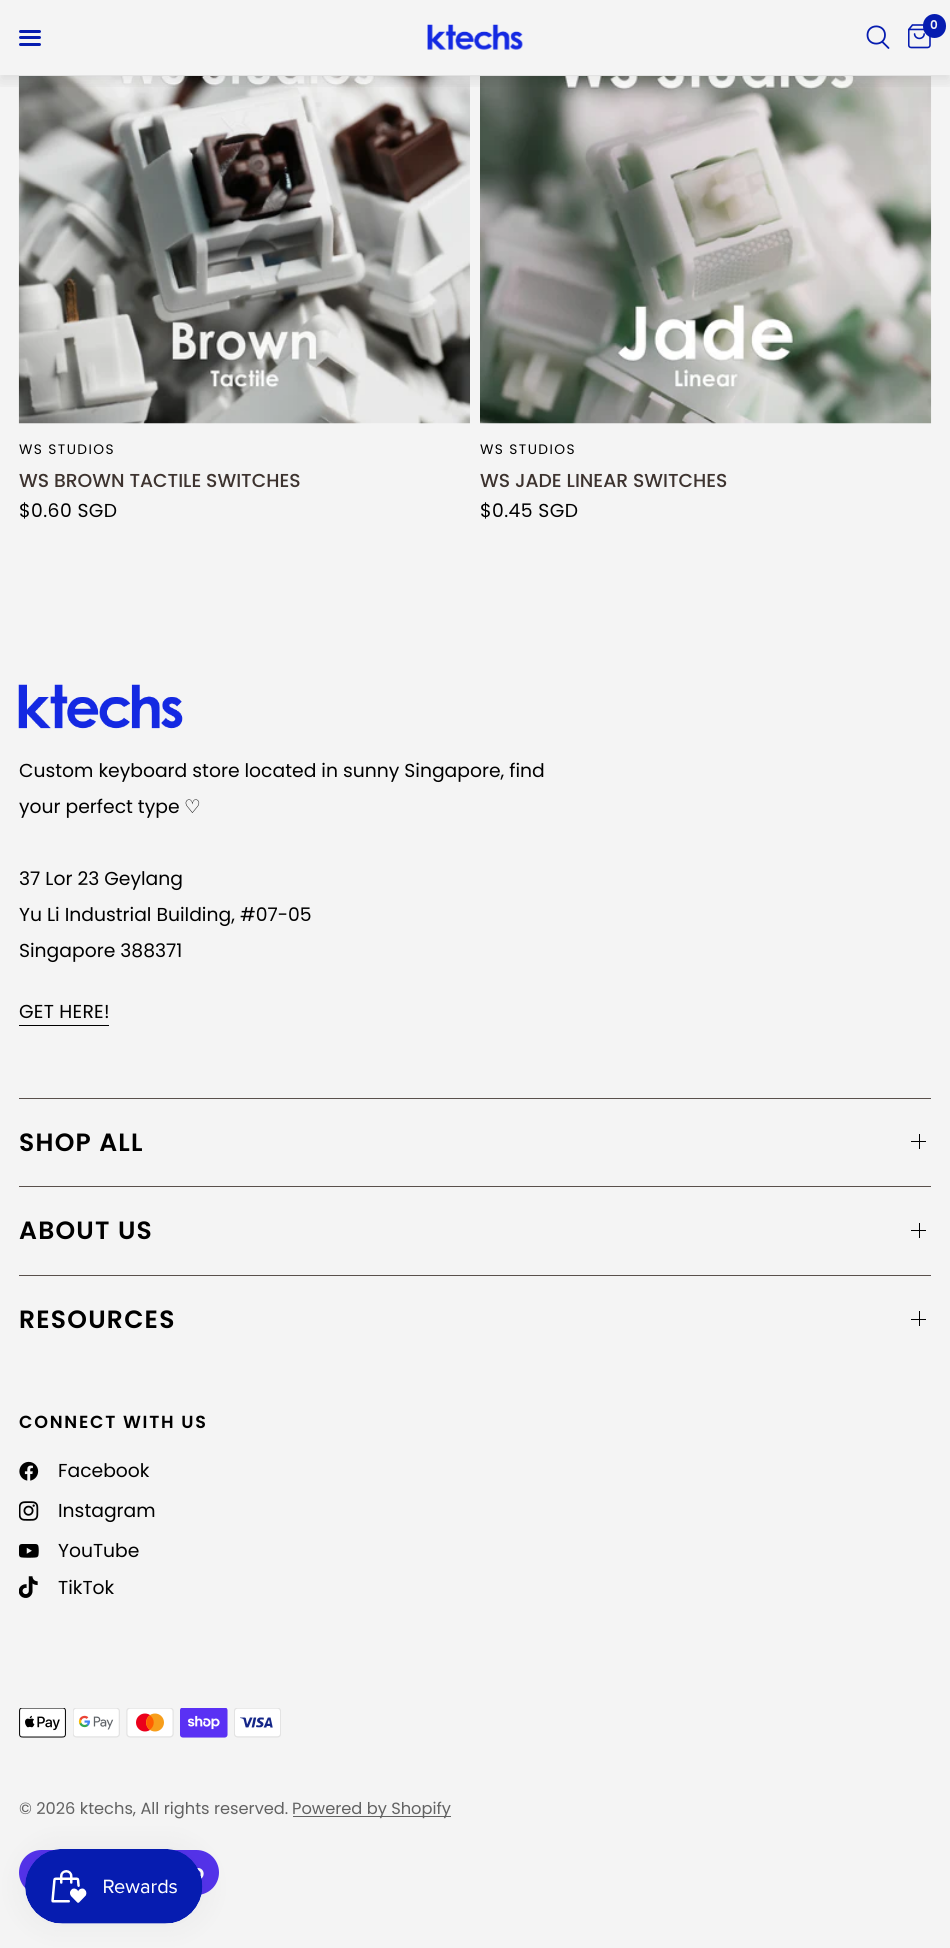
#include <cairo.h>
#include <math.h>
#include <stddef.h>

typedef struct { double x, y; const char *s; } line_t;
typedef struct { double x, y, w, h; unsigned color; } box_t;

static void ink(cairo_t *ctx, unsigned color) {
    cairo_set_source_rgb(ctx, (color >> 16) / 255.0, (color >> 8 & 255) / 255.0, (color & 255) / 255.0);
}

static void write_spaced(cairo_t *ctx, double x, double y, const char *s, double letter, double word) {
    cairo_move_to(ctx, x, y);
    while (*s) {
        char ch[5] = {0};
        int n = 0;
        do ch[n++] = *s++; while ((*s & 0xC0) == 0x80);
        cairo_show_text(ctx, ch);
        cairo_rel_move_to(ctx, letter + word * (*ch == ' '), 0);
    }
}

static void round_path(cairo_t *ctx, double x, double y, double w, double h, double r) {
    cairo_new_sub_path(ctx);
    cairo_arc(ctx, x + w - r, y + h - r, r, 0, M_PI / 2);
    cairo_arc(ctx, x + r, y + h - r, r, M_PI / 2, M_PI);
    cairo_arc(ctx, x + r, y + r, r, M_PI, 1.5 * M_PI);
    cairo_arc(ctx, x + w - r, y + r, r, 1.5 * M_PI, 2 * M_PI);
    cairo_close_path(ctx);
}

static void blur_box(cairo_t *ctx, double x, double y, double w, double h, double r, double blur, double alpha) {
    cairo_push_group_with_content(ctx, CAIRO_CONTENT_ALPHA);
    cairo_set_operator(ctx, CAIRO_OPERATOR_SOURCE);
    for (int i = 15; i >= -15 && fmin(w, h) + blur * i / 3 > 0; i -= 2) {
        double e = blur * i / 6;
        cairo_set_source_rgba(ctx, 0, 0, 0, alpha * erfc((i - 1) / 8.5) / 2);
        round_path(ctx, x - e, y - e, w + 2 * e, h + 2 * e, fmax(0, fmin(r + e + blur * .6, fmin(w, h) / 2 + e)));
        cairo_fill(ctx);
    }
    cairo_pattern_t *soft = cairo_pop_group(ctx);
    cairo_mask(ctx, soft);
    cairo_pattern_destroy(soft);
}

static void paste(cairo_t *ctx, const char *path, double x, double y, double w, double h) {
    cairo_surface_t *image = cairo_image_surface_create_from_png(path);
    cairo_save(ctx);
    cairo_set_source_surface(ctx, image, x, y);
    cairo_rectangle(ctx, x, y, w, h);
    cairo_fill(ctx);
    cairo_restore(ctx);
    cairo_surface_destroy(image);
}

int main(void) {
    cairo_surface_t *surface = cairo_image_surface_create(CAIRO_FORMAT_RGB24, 950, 1948);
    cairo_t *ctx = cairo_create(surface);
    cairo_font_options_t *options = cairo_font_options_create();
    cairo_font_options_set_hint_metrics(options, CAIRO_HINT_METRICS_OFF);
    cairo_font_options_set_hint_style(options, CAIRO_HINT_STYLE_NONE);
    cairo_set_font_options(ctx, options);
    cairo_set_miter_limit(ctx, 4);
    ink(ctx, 0xF4F4F4);
    cairo_paint(ctx);
    paste(ctx, "media/3.png", 18, 76, 452, 348);
    paste(ctx, "media/4.png", 480, 76, 452, 348);
    cairo_save(ctx);
    cairo_rectangle(ctx, 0, 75, 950, 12);
    cairo_clip(ctx);
    ink(ctx, 0x000000);
    blur_box(ctx, 0, 6, 950, 75, 0, 7.5, 0.1);
    cairo_restore(ctx);
    ink(ctx, 0x061CB0);
    round_path(ctx, 19, 30, 22, 3, 1.5);
    cairo_fill(ctx);
    round_path(ctx, 19, 36, 22, 3, 1.5);
    cairo_fill(ctx);
    round_path(ctx, 19, 43, 22, 3, 1.5);
    cairo_fill(ctx);
    paste(ctx, "media/1.png", 427, 24, 96, 26);
    paste(ctx, "media/2.png", 908, 24, 23, 25);
    round_path(ctx, 923, 14, 23, 24, 11.5);
    cairo_fill(ctx);
    cairo_select_font_face(ctx, "Poppins SemiBold", CAIRO_FONT_SLANT_NORMAL, CAIRO_FONT_WEIGHT_NORMAL);
    cairo_set_font_size(ctx, 12);
    ink(ctx, 0xF4F4F4);
    cairo_move_to(ctx, 930, 29);
    cairo_show_text(ctx, "0");
    cairo_new_path(ctx);
    cairo_move_to(ctx, 882.5, 42);
    cairo_line_to(ctx, 888.5, 48);
    cairo_move_to(ctx, 885, 35);
    cairo_curve_to(ctx, 885, 46.5, 867.5, 46.5, 867.5, 35);
    cairo_curve_to(ctx, 867.5, 23.5, 885, 23.5, 885, 35);
    cairo_close_path(ctx);
    ink(ctx, 0x061CB0);
    cairo_set_line_width(ctx, 1.8);
    cairo_set_line_cap(ctx, CAIRO_LINE_CAP_ROUND);
    cairo_set_line_join(ctx, CAIRO_LINE_JOIN_ROUND);
    cairo_stroke(ctx);
    cairo_select_font_face(ctx, "Poppins", CAIRO_FONT_SLANT_NORMAL, CAIRO_FONT_WEIGHT_NORMAL);
    cairo_set_font_size(ctx, 13.75);
    ink(ctx, 0x000000);
    write_spaced(ctx, 19, 454, "WS STUDIOS", 1.4, 0);
    cairo_select_font_face(ctx, "Poppins Medium", CAIRO_FONT_SLANT_NORMAL, CAIRO_FONT_WEIGHT_NORMAL);
    cairo_set_font_size(ctx, 18.75);
    ink(ctx, 0x3D332F);
    cairo_move_to(ctx, 19, 487);
    cairo_show_text(ctx, "WS BROWN TACTILE SWITCHES");
    cairo_select_font_face(ctx, "Poppins", CAIRO_FONT_SLANT_NORMAL, CAIRO_FONT_WEIGHT_NORMAL);
    ink(ctx, 0x000000);
    write_spaced(ctx, 19, 517, "$0.60 SGD", 0.4, 0);
    cairo_set_font_size(ctx, 13.75);
    write_spaced(ctx, 480, 454, "WS STUDIOS", 1.4, 0);
    cairo_select_font_face(ctx, "Poppins Medium", CAIRO_FONT_SLANT_NORMAL, CAIRO_FONT_WEIGHT_NORMAL);
    cairo_set_font_size(ctx, 18.75);
    ink(ctx, 0x3D332F);
    cairo_move_to(ctx, 480, 487);
    cairo_show_text(ctx, "WS JADE LINEAR SWITCHES");
    cairo_select_font_face(ctx, "Poppins", CAIRO_FONT_SLANT_NORMAL, CAIRO_FONT_WEIGHT_NORMAL);
    ink(ctx, 0x000000);
    write_spaced(ctx, 480, 517, "$0.45 SGD", 0.4, 0);
    paste(ctx, "media/5.png", 18, 684, 165, 45);
    cairo_move_to(ctx, 19, 777);
    cairo_show_text(ctx, "Custom keyboard store located in sunny Singapore, find");
    cairo_move_to(ctx, 19, 813);
    cairo_show_text(ctx, "your perfect type");
    cairo_select_font_face(ctx, "DejaVu Sans", CAIRO_FONT_SLANT_NORMAL, CAIRO_FONT_WEIGHT_NORMAL);
    cairo_move_to(ctx, 184, 813);
    cairo_show_text(ctx, "♡");
    cairo_select_font_face(ctx, "Poppins", CAIRO_FONT_SLANT_NORMAL, CAIRO_FONT_WEIGHT_NORMAL);
    {
        static const line_t items[] = {
            {19, 885, "37 Lor 23 Geylang"},
            {19, 921, "Yu Li Industrial Building, #07-05"},
            {19, 957, "Singapore 388371"},
        };
        for (size_t i = 0; i < sizeof items / sizeof *items; i++) {
            cairo_move_to(ctx, items[i].x, items[i].y);
            cairo_show_text(ctx, items[i].s);
        }
    }
    write_spaced(ctx, 19, 1018, "GET HERE!", 0.25, 0);
    cairo_rectangle(ctx, 19, 1025, 90, 1);
    cairo_fill(ctx);
    ink(ctx, 0x59504C);
    cairo_rectangle(ctx, 19, 1098, 912, 1);
    cairo_fill(ctx);
    cairo_select_font_face(ctx, "Poppins SemiBold", CAIRO_FONT_SLANT_NORMAL, CAIRO_FONT_WEIGHT_NORMAL);
    cairo_set_font_size(ctx, 25);
    ink(ctx, 0x000000);
    write_spaced(ctx, 19, 1151, "SHOP ALL", 1.25, 0);
    {
        static const box_t items[] = {
            {919, 1134, 1, 15, 0x000000},
            {911, 1141, 15, 1, 0x000000},
            {19, 1186, 912, 1, 0x59504C},
        };
        for (size_t i = 0; i < sizeof items / sizeof *items; i++) {
            ink(ctx, items[i].color);
            cairo_rectangle(ctx, items[i].x, items[i].y, items[i].w, items[i].h);
            cairo_fill(ctx);
        }
    }
    ink(ctx, 0x000000);
    write_spaced(ctx, 19, 1239, "ABOUT US", 1.25, 0);
    {
        static const box_t items[] = {
            {919, 1223, 1, 15, 0x000000},
            {911, 1230, 15, 1, 0x000000},
            {19, 1275, 912, 1, 0x59504C},
        };
        for (size_t i = 0; i < sizeof items / sizeof *items; i++) {
            ink(ctx, items[i].color);
            cairo_rectangle(ctx, items[i].x, items[i].y, items[i].w, items[i].h);
            cairo_fill(ctx);
        }
    }
    ink(ctx, 0x000000);
    write_spaced(ctx, 19, 1328, "RESOURCES", 1.25, 0);
    cairo_rectangle(ctx, 919, 1311, 1, 15);
    cairo_fill(ctx);
    cairo_rectangle(ctx, 911, 1319, 15, 1);
    cairo_fill(ctx);
    cairo_set_font_size(ctx, 17.5);
    write_spaced(ctx, 19, 1428, "CONNECT WITH US", 1.75, 0);
    paste(ctx, "media/6.png", 19, 1461, 20, 20);
    cairo_select_font_face(ctx, "Poppins", CAIRO_FONT_SLANT_NORMAL, CAIRO_FONT_WEIGHT_NORMAL);
    cairo_set_font_size(ctx, 18.75);
    cairo_move_to(ctx, 58, 1477);
    cairo_show_text(ctx, "Facebook");
    paste(ctx, "media/7.png", 19, 1501, 20, 20);
    cairo_move_to(ctx, 58, 1517);
    cairo_show_text(ctx, "Instagram");
    paste(ctx, "media/8.png", 19, 1544, 20, 14);
    cairo_move_to(ctx, 58, 1557);
    cairo_show_text(ctx, "YouTube");
    paste(ctx, "media/9.png", 19, 1576, 19, 22);
    cairo_move_to(ctx, 58, 1594);
    cairo_show_text(ctx, "TikTok");
    paste(ctx, "media/10.png", 19, 1708, 47, 30);
    paste(ctx, "media/11.png", 73, 1708, 47, 30);
    paste(ctx, "media/12.png", 126, 1708, 48, 30);
    paste(ctx, "media/13.png", 180, 1708, 48, 30);
    paste(ctx, "media/14.png", 234, 1708, 47, 30);
    cairo_set_font_size(ctx, 16.25);
    ink(ctx, 0x626262);
    cairo_move_to(ctx, 19, 1814);
    cairo_show_text(ctx, "© 2026 ktechs, All rights reserved.");
    cairo_rectangle(ctx, 293, 1816, 158, 1);
    cairo_fill(ctx);
    cairo_move_to(ctx, 292, 1814);
    cairo_show_text(ctx, "Powered by Shopify");
    ink(ctx, 0x5433EB);
    round_path(ctx, 19, 1850, 200, 45, 22.5);
    cairo_fill(ctx);
    paste(ctx, "media/15.png", 31, 1863, 3, 4);
    paste(ctx, "media/16.png", 197, 1868, 7, 11);
    ink(ctx, 0x000000);
    blur_box(ctx, 25, 1849, 178, 75, 37.5, 15.5, 0.05);
    paste(ctx, "media/17.png", 25, 1849, 178, 75);
    cairo_surface_write_to_png(surface, "image.png");
    cairo_font_options_destroy(options);
    cairo_destroy(ctx);
    cairo_surface_destroy(surface);
    return 0;
}
